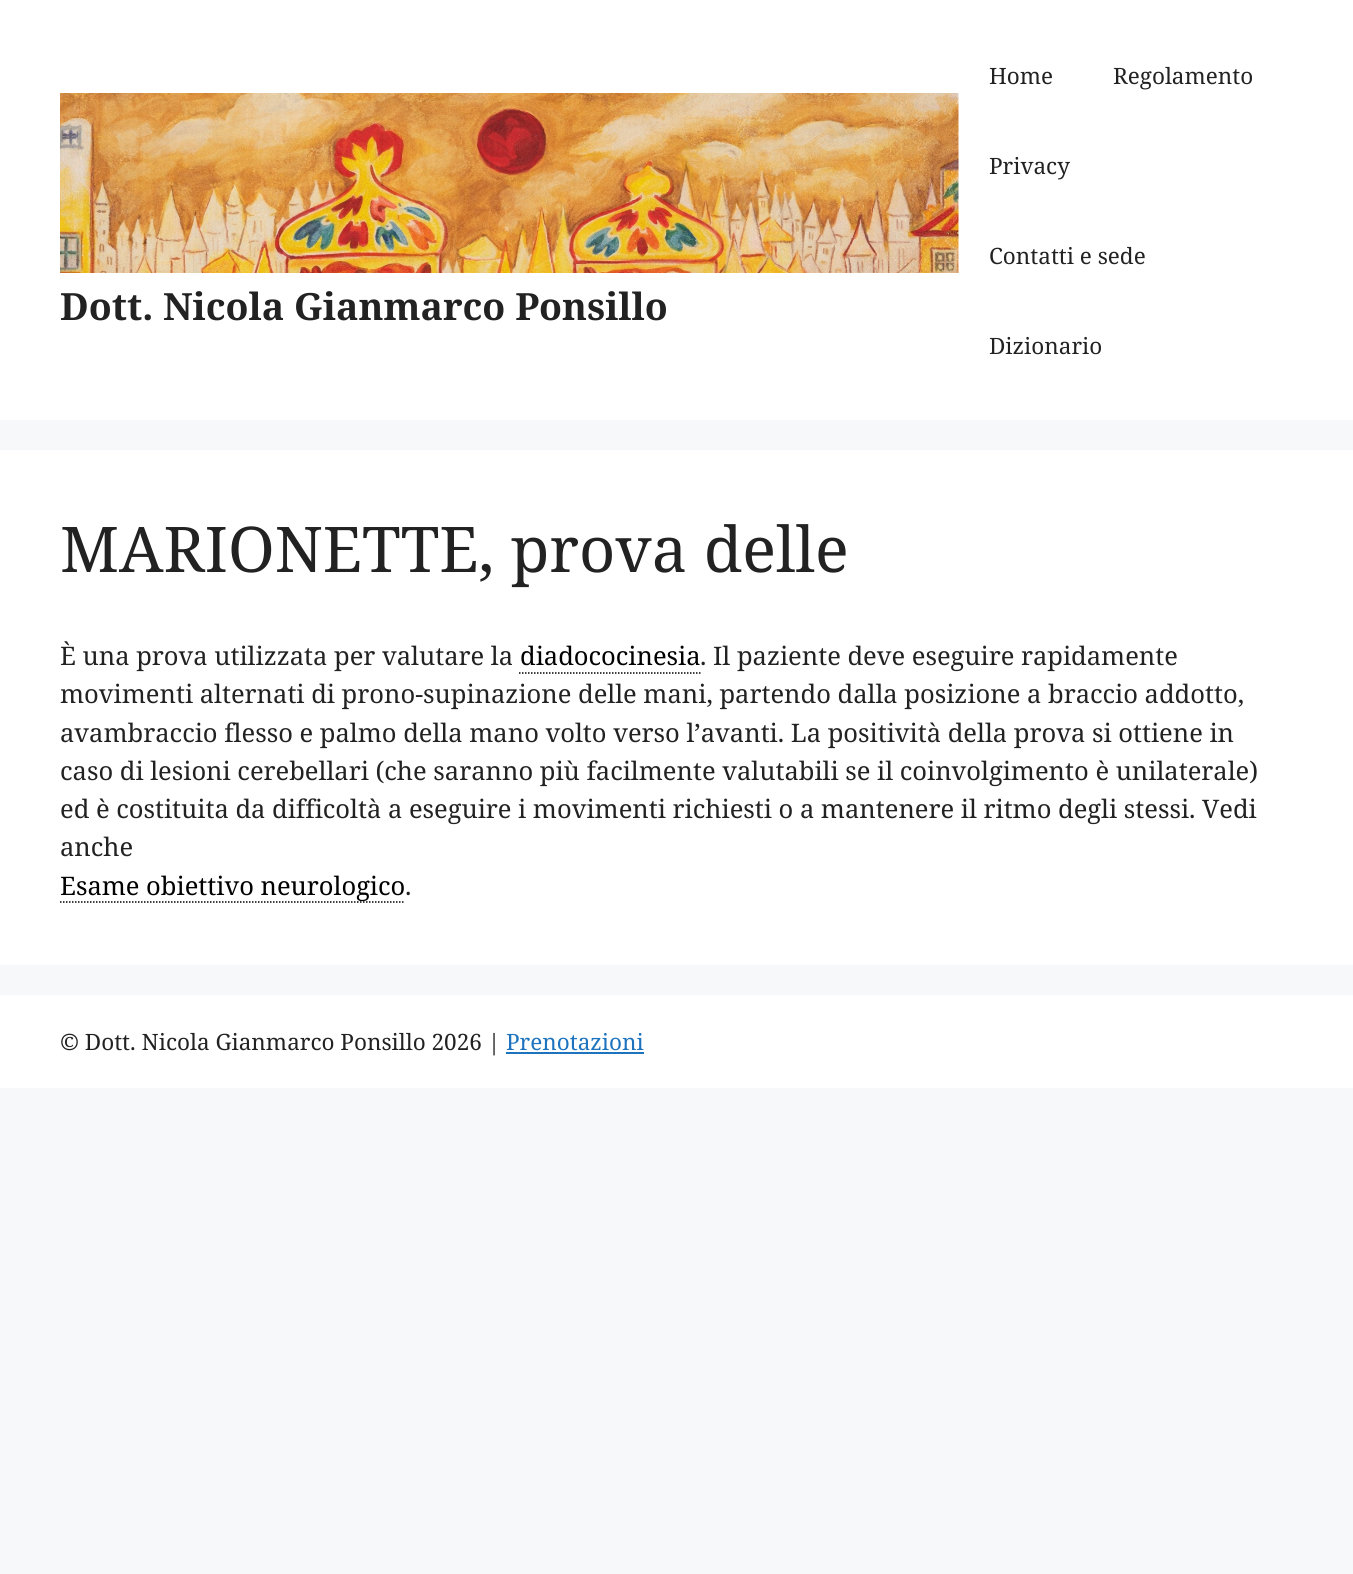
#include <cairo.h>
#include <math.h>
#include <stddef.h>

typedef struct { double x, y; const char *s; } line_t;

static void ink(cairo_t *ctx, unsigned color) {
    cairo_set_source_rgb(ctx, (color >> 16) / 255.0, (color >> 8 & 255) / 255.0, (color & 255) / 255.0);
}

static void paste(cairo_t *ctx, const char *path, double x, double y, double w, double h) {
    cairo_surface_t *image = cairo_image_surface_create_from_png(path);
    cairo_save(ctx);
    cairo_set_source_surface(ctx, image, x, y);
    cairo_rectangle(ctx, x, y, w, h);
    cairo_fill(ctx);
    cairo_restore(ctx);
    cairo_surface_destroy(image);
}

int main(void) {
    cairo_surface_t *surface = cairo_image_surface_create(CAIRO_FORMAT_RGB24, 1353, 1574);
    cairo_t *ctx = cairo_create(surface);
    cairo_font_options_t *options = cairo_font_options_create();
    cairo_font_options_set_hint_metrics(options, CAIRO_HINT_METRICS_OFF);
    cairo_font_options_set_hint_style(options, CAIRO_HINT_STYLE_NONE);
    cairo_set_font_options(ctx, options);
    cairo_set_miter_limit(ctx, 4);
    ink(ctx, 0xF7F8F9);
    cairo_paint(ctx);
    ink(ctx, 0xFFFFFF);
    cairo_rectangle(ctx, 0, 0, 1353, 420);
    cairo_fill(ctx);
    paste(ctx, "media/1.png", 60, 93, 899, 180);
    cairo_select_font_face(ctx, "Noto Serif", CAIRO_FONT_SLANT_NORMAL, CAIRO_FONT_WEIGHT_BOLD);
    cairo_set_font_size(ctx, 37.5);
    ink(ctx, 0x222222);
    cairo_move_to(ctx, 60, 320);
    cairo_show_text(ctx, "Dott. Nicola Gianmarco Ponsillo");
    cairo_select_font_face(ctx, "Noto Serif", CAIRO_FONT_SLANT_NORMAL, CAIRO_FONT_WEIGHT_NORMAL);
    cairo_set_font_size(ctx, 22.5);
    {
        static const line_t items[] = {
            {989, 84, "Home"},
            {1113, 84, "Regolamento"},
            {989, 174, "Privacy"},
            {989, 264, "Contatti e sede"},
            {989, 354, "Dizionario"},
        };
        for (size_t i = 0; i < sizeof items / sizeof *items; i++) {
            cairo_move_to(ctx, items[i].x, items[i].y);
            cairo_show_text(ctx, items[i].s);
        }
    }
    ink(ctx, 0xFFFFFF);
    cairo_rectangle(ctx, 0, 450, 1353, 515);
    cairo_fill(ctx);
    cairo_set_font_size(ctx, 63);
    ink(ctx, 0x222222);
    cairo_move_to(ctx, 60, 572);
    cairo_show_text(ctx, "MARIONETTE, prova delle");
    cairo_set_font_size(ctx, 25.5);
    cairo_move_to(ctx, 60, 665);
    cairo_show_text(ctx, "È una prova utilizzata per valutare la");
    ink(ctx, 0x000000);
    cairo_move_to(ctx, 520, 665);
    cairo_show_text(ctx, "diadococinesia");
    cairo_new_path(ctx);
    cairo_move_to(ctx, 519, 673);
    cairo_line_to(ctx, 700.5, 673);
    cairo_set_line_width(ctx, 1.5);
    cairo_set_dash(ctx, (double[]){1.5, 1.5}, 2, 0);
    cairo_stroke(ctx);
    ink(ctx, 0x222222);
    {
        static const line_t items[] = {
            {700, 665, ". Il paziente deve eseguire rapidamente"},
            {60, 703, "movimenti alternati di prono-supinazione delle mani, partendo dalla posizione a braccio addotto,"},
            {60, 742, "avambraccio flesso e palmo della mano volto verso l’avanti. La positività della prova si ottiene in"},
            {60, 780, "caso di lesioni cerebellari (che saranno più facilmente valutabili se il coinvolgimento è unilaterale)"},
            {60, 818, "ed è costituita da difficoltà a eseguire i movimenti richiesti o a mantenere il ritmo degli stessi. Vedi"},
            {60, 856, "anche"},
        };
        for (size_t i = 0; i < sizeof items / sizeof *items; i++) {
            cairo_move_to(ctx, items[i].x, items[i].y);
            cairo_show_text(ctx, items[i].s);
        }
    }
    cairo_new_path(ctx);
    cairo_move_to(ctx, 60, 902);
    cairo_line_to(ctx, 405, 902);
    ink(ctx, 0x000000);
    cairo_stroke(ctx);
    cairo_move_to(ctx, 60, 895);
    cairo_show_text(ctx, "Esame obiettivo neurologico");
    ink(ctx, 0x222222);
    cairo_move_to(ctx, 405, 895);
    cairo_show_text(ctx, ".");
    ink(ctx, 0xFFFFFF);
    cairo_rectangle(ctx, 0, 995, 1353, 93);
    cairo_fill(ctx);
    cairo_set_font_size(ctx, 22.5);
    ink(ctx, 0x222222);
    cairo_move_to(ctx, 60, 1050);
    cairo_show_text(ctx, "© Dott. Nicola Gianmarco Ponsillo 2026 |");
    ink(ctx, 0x1E73BE);
    cairo_move_to(ctx, 506, 1050);
    cairo_show_text(ctx, "Prenotazioni");
    cairo_rectangle(ctx, 506, 1052, 138, 2);
    cairo_fill(ctx);
    cairo_surface_write_to_png(surface, "image.png");
    cairo_font_options_destroy(options);
    cairo_destroy(ctx);
    cairo_surface_destroy(surface);
    return 0;
}
